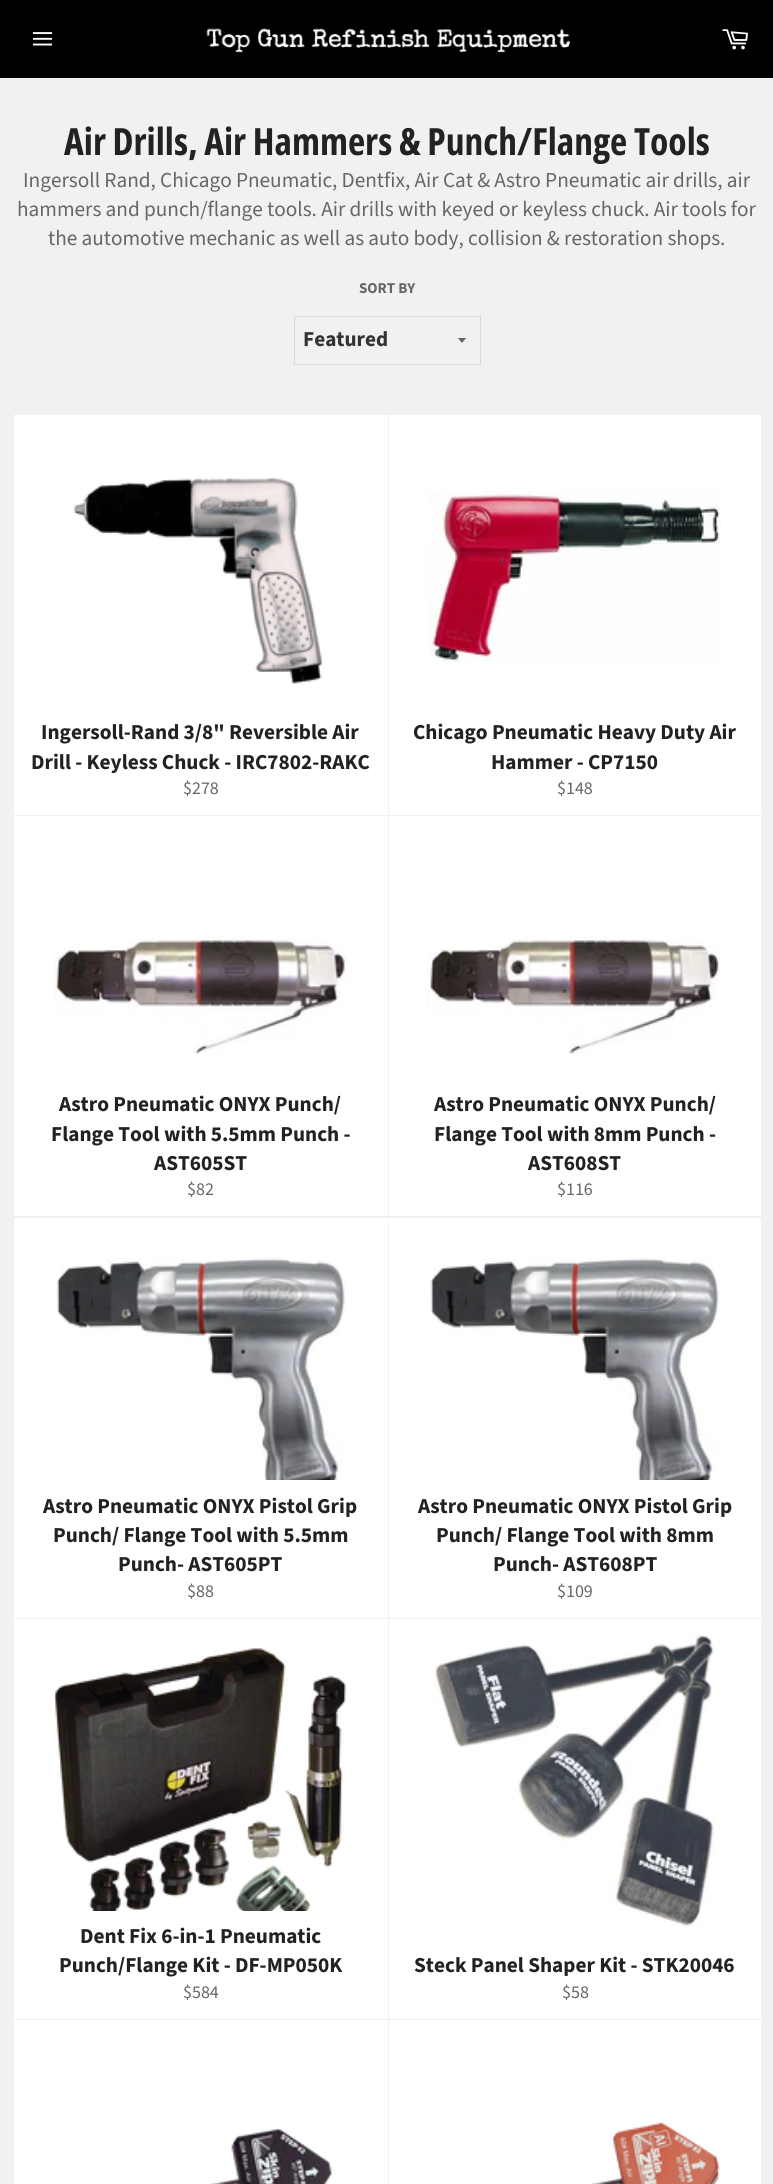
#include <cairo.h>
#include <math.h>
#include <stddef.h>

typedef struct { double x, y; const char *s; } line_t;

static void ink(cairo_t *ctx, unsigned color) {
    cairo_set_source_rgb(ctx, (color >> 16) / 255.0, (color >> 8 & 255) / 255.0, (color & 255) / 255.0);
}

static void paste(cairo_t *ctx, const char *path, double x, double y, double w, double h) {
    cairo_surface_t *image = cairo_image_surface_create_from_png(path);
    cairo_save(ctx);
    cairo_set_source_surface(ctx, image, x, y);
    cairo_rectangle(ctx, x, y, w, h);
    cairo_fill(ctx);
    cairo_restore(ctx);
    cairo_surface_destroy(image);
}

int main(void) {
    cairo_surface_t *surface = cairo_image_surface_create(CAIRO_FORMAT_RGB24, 773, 2184);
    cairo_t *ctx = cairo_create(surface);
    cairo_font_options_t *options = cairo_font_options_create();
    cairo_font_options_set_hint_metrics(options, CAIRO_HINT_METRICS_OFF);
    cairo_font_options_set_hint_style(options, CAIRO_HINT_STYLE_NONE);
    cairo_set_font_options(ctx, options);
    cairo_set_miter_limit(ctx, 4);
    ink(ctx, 0xF1F1F1);
    cairo_paint(ctx);
    ink(ctx, 0x000000);
    cairo_rectangle(ctx, 0, 0, 773, 78);
    cairo_fill(ctx);
    paste(ctx, "media/1.png", 32, 32, 21, 14);
    paste(ctx, "media/2.png", 206, 28, 364, 25);
    paste(ctx, "media/3.png", 722, 29, 26, 21);
    cairo_select_font_face(ctx, "Open Sans Condensed", CAIRO_FONT_SLANT_NORMAL, CAIRO_FONT_WEIGHT_BOLD);
    cairo_set_font_size(ctx, 37.5);
    ink(ctx, 0x222222);
    cairo_move_to(ctx, 64, 155);
    cairo_show_text(ctx, "Air Drills, Air Hammers & Punch/Flange Tools");
    cairo_select_font_face(ctx, "Source Sans Pro", CAIRO_FONT_SLANT_NORMAL, CAIRO_FONT_WEIGHT_NORMAL);
    cairo_set_font_size(ctx, 21.25);
    ink(ctx, 0x666666);
    {
        static const line_t items[] = {
            {23, 187, "Ingersoll Rand, Chicago Pneumatic, Dentfix, Air Cat & Astro Pneumatic air drills, air"},
            {17, 216, "hammers and punch/flange tools. Air drills with keyed or keyless chuck. Air tools for"},
            {48, 245, "the automotive mechanic as well as auto body, collision & restoration shops."},
        };
        for (size_t i = 0; i < sizeof items / sizeof *items; i++) {
            cairo_move_to(ctx, items[i].x, items[i].y);
            cairo_show_text(ctx, items[i].s);
        }
    }
    cairo_select_font_face(ctx, "Source Sans Pro", CAIRO_FONT_SLANT_NORMAL, CAIRO_FONT_WEIGHT_BOLD);
    cairo_set_font_size(ctx, 15);
    cairo_move_to(ctx, 359, 293);
    cairo_show_text(ctx, "SORT BY");
    cairo_save(ctx);
    cairo_rectangle(ctx, 458, 338, 10, 6);
    cairo_clip(ctx);
    cairo_new_path(ctx);
    cairo_move_to(ctx, 457.5, 337.5);
    cairo_line_to(ctx, 462, 343);
    cairo_line_to(ctx, 466.5, 337.5);
    cairo_close_path(ctx);
    cairo_fill(ctx);
    cairo_restore(ctx);
    cairo_rectangle(ctx, 294.5, 316.5, 186, 48);
    ink(ctx, 0xD7D7D7);
    cairo_set_line_width(ctx, 1);
    cairo_stroke(ctx);
    cairo_set_font_size(ctx, 21.25);
    ink(ctx, 0x333333);
    cairo_move_to(ctx, 303, 346);
    cairo_show_text(ctx, "Featured");
    ink(ctx, 0xFFFFFF);
    cairo_rectangle(ctx, 14, 415, 374, 400);
    cairo_fill(ctx);
    paste(ctx, "media/4.png", 73, 477, 250, 207);
    ink(ctx, 0x222222);
    cairo_move_to(ctx, 41, 739);
    cairo_show_text(ctx, "Ingersoll-Rand 3/8\" Reversible Air");
    cairo_move_to(ctx, 31, 769);
    cairo_show_text(ctx, "Drill - Keyless Chuck - IRC7802-RAKC");
    cairo_select_font_face(ctx, "Source Sans Pro", CAIRO_FONT_SLANT_NORMAL, CAIRO_FONT_WEIGHT_NORMAL);
    cairo_set_font_size(ctx, 18);
    ink(ctx, 0x666666);
    cairo_move_to(ctx, 183, 794);
    cairo_show_text(ctx, "$278");
    ink(ctx, 0xFFFFFF);
    cairo_rectangle(ctx, 389, 415, 372, 400);
    cairo_fill(ctx);
    paste(ctx, "media/5.png", 427, 491, 294, 172);
    cairo_select_font_face(ctx, "Source Sans Pro", CAIRO_FONT_SLANT_NORMAL, CAIRO_FONT_WEIGHT_BOLD);
    cairo_set_font_size(ctx, 21.25);
    ink(ctx, 0x222222);
    cairo_move_to(ctx, 413, 739);
    cairo_show_text(ctx, "Chicago Pneumatic Heavy Duty Air");
    cairo_move_to(ctx, 491, 769);
    cairo_show_text(ctx, "Hammer - CP7150");
    cairo_select_font_face(ctx, "Source Sans Pro", CAIRO_FONT_SLANT_NORMAL, CAIRO_FONT_WEIGHT_NORMAL);
    cairo_set_font_size(ctx, 18);
    ink(ctx, 0x666666);
    cairo_move_to(ctx, 557, 794);
    cairo_show_text(ctx, "$148");
    ink(ctx, 0xFFFFFF);
    cairo_rectangle(ctx, 14, 816, 374, 400);
    cairo_fill(ctx);
    paste(ctx, "media/6.png", 54, 936, 294, 118);
    cairo_select_font_face(ctx, "Source Sans Pro", CAIRO_FONT_SLANT_NORMAL, CAIRO_FONT_WEIGHT_BOLD);
    cairo_set_font_size(ctx, 21.25);
    ink(ctx, 0x222222);
    {
        static const line_t items[] = {
            {59, 1111, "Astro Pneumatic ONYX Punch/"},
            {51, 1141, "Flange Tool with 5.5mm Punch -"},
            {154, 1170, "AST605ST"},
        };
        for (size_t i = 0; i < sizeof items / sizeof *items; i++) {
            cairo_move_to(ctx, items[i].x, items[i].y);
            cairo_show_text(ctx, items[i].s);
        }
    }
    cairo_select_font_face(ctx, "Source Sans Pro", CAIRO_FONT_SLANT_NORMAL, CAIRO_FONT_WEIGHT_NORMAL);
    cairo_set_font_size(ctx, 18);
    ink(ctx, 0x666666);
    cairo_move_to(ctx, 187, 1195);
    cairo_show_text(ctx, "$82");
    ink(ctx, 0xFFFFFF);
    cairo_rectangle(ctx, 389, 816, 372, 400);
    cairo_fill(ctx);
    paste(ctx, "media/7.png", 427, 936, 294, 118);
    cairo_select_font_face(ctx, "Source Sans Pro", CAIRO_FONT_SLANT_NORMAL, CAIRO_FONT_WEIGHT_BOLD);
    cairo_set_font_size(ctx, 21.25);
    ink(ctx, 0x222222);
    {
        static const line_t items[] = {
            {434, 1111, "Astro Pneumatic ONYX Punch/"},
            {434, 1141, "Flange Tool with 8mm Punch -"},
            {528, 1170, "AST608ST"},
        };
        for (size_t i = 0; i < sizeof items / sizeof *items; i++) {
            cairo_move_to(ctx, items[i].x, items[i].y);
            cairo_show_text(ctx, items[i].s);
        }
    }
    cairo_select_font_face(ctx, "Source Sans Pro", CAIRO_FONT_SLANT_NORMAL, CAIRO_FONT_WEIGHT_NORMAL);
    cairo_set_font_size(ctx, 18);
    ink(ctx, 0x666666);
    cairo_move_to(ctx, 557, 1195);
    cairo_show_text(ctx, "$116");
    ink(ctx, 0xFFFFFF);
    cairo_rectangle(ctx, 14, 1218, 374, 400);
    cairo_fill(ctx);
    paste(ctx, "media/8.png", 56, 1258, 291, 222);
    cairo_select_font_face(ctx, "Source Sans Pro", CAIRO_FONT_SLANT_NORMAL, CAIRO_FONT_WEIGHT_BOLD);
    cairo_set_font_size(ctx, 21.25);
    ink(ctx, 0x222222);
    {
        static const line_t items[] = {
            {43, 1513, "Astro Pneumatic ONYX Pistol Grip"},
            {53, 1542, "Punch/ Flange Tool with 5.5mm"},
            {118, 1571, "Punch- AST605PT"},
        };
        for (size_t i = 0; i < sizeof items / sizeof *items; i++) {
            cairo_move_to(ctx, items[i].x, items[i].y);
            cairo_show_text(ctx, items[i].s);
        }
    }
    cairo_select_font_face(ctx, "Source Sans Pro", CAIRO_FONT_SLANT_NORMAL, CAIRO_FONT_WEIGHT_NORMAL);
    cairo_set_font_size(ctx, 18);
    ink(ctx, 0x666666);
    cairo_move_to(ctx, 187, 1597);
    cairo_show_text(ctx, "$88");
    ink(ctx, 0xFFFFFF);
    cairo_rectangle(ctx, 389, 1218, 372, 400);
    cairo_fill(ctx);
    paste(ctx, "media/9.png", 430, 1258, 291, 222);
    cairo_select_font_face(ctx, "Source Sans Pro", CAIRO_FONT_SLANT_NORMAL, CAIRO_FONT_WEIGHT_BOLD);
    cairo_set_font_size(ctx, 21.25);
    ink(ctx, 0x222222);
    {
        static const line_t items[] = {
            {418, 1513, "Astro Pneumatic ONYX Pistol Grip"},
            {436, 1542, "Punch/ Flange Tool with 8mm"},
            {493, 1571, "Punch- AST608PT"},
        };
        for (size_t i = 0; i < sizeof items / sizeof *items; i++) {
            cairo_move_to(ctx, items[i].x, items[i].y);
            cairo_show_text(ctx, items[i].s);
        }
    }
    cairo_select_font_face(ctx, "Source Sans Pro", CAIRO_FONT_SLANT_NORMAL, CAIRO_FONT_WEIGHT_NORMAL);
    cairo_set_font_size(ctx, 18);
    ink(ctx, 0x666666);
    cairo_move_to(ctx, 557, 1597);
    cairo_show_text(ctx, "$109");
    ink(ctx, 0xFFFFFF);
    cairo_rectangle(ctx, 14, 1619, 374, 400);
    cairo_fill(ctx);
    paste(ctx, "media/10.png", 54, 1648, 293, 263);
    cairo_select_font_face(ctx, "Source Sans Pro", CAIRO_FONT_SLANT_NORMAL, CAIRO_FONT_WEIGHT_BOLD);
    cairo_set_font_size(ctx, 21.25);
    ink(ctx, 0x222222);
    cairo_move_to(ctx, 80, 1943);
    cairo_show_text(ctx, "Dent Fix 6-in-1 Pneumatic");
    cairo_move_to(ctx, 59, 1972);
    cairo_show_text(ctx, "Punch/Flange Kit - DF-MP050K");
    cairo_select_font_face(ctx, "Source Sans Pro", CAIRO_FONT_SLANT_NORMAL, CAIRO_FONT_WEIGHT_NORMAL);
    cairo_set_font_size(ctx, 18);
    ink(ctx, 0x666666);
    cairo_move_to(ctx, 183, 1998);
    cairo_show_text(ctx, "$584");
    ink(ctx, 0xFFFFFF);
    cairo_rectangle(ctx, 389, 1619, 372, 400);
    cairo_fill(ctx);
    paste(ctx, "media/11.png", 434, 1634, 281, 293);
    cairo_select_font_face(ctx, "Source Sans Pro", CAIRO_FONT_SLANT_NORMAL, CAIRO_FONT_WEIGHT_BOLD);
    cairo_set_font_size(ctx, 21.25);
    ink(ctx, 0x222222);
    cairo_move_to(ctx, 414, 1972);
    cairo_show_text(ctx, "Steck Panel Shaper Kit - STK20046");
    cairo_select_font_face(ctx, "Source Sans Pro", CAIRO_FONT_SLANT_NORMAL, CAIRO_FONT_WEIGHT_NORMAL);
    cairo_set_font_size(ctx, 18);
    ink(ctx, 0x666666);
    cairo_move_to(ctx, 562, 1998);
    cairo_show_text(ctx, "$58");
    ink(ctx, 0xFFFFFF);
    cairo_rectangle(ctx, 14, 2020, 374, 164);
    cairo_fill(ctx);
    paste(ctx, "media/12.png", 210, 2127, 123, 57);
    cairo_rectangle(ctx, 389, 2020, 372, 164);
    cairo_fill(ctx);
    paste(ctx, "media/13.png", 590, 2122, 130, 62);
    cairo_surface_write_to_png(surface, "image.png");
    cairo_font_options_destroy(options);
    cairo_destroy(ctx);
    cairo_surface_destroy(surface);
    return 0;
}
